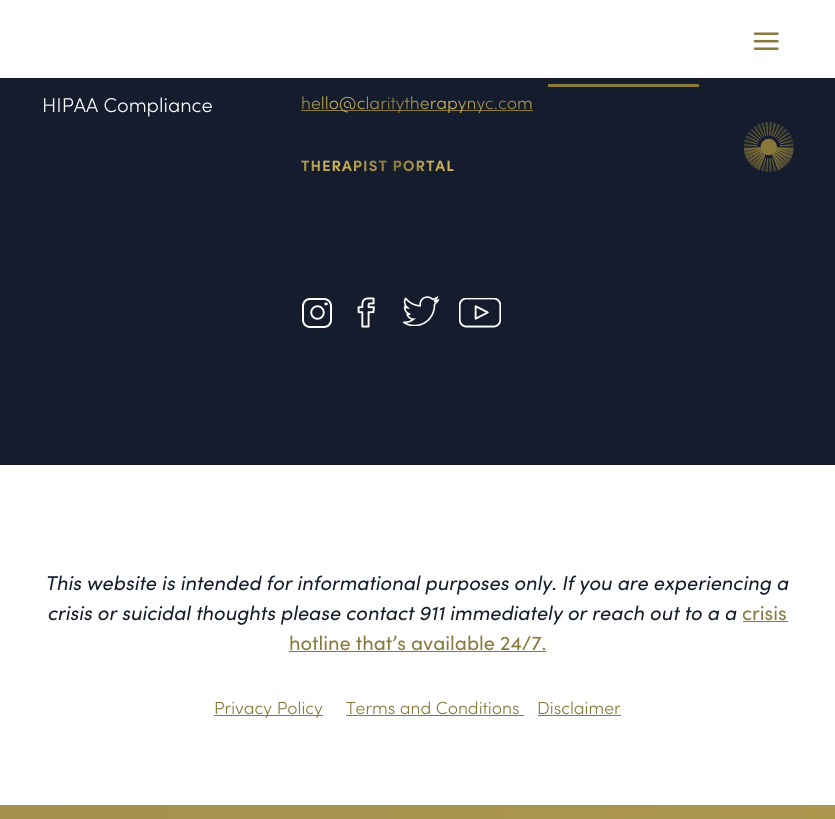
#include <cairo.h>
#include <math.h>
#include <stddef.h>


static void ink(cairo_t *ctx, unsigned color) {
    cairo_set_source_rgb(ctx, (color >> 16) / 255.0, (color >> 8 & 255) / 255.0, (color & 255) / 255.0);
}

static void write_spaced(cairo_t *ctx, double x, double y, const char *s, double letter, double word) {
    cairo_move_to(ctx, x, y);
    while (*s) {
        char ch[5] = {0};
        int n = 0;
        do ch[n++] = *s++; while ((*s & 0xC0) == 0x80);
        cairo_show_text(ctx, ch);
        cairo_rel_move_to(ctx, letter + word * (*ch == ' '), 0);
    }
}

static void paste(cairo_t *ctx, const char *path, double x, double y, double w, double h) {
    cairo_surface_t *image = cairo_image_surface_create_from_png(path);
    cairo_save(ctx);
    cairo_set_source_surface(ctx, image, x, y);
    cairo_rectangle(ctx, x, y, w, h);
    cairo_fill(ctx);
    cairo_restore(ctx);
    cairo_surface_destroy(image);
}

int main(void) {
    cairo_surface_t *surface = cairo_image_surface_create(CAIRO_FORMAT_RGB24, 835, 819);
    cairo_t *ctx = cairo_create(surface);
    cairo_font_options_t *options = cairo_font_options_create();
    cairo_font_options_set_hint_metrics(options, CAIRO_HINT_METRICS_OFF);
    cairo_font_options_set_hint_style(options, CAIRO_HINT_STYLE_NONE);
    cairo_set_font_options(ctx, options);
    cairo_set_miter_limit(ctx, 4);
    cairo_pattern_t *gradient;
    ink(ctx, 0xFFFFFF);
    cairo_paint(ctx);
    paste(ctx, "media/1.png", 753, 32, 26, 18);
    ink(ctx, 0x141C2D);
    cairo_rectangle(ctx, 0, 78, 835, 387);
    cairo_fill(ctx);
    cairo_select_font_face(ctx, "Sofia Light", CAIRO_FONT_SLANT_NORMAL, CAIRO_FONT_WEIGHT_NORMAL);
    cairo_set_font_size(ctx, 20);
    ink(ctx, 0xFFFFFF);
    cairo_move_to(ctx, 42, 112);
    cairo_show_text(ctx, "HIPAA Compliance");
    ink(ctx, 0x89793C);
    cairo_rectangle(ctx, 301, 110, 232, 1);
    cairo_fill(ctx);
    cairo_set_font_size(ctx, 17.5);
    gradient = cairo_pattern_create_linear(353, 166, 481, 38);
    cairo_pattern_add_color_stop_rgba(gradient, 0, 0.541, 0.475, 0.235, 1);
    cairo_pattern_add_color_stop_rgba(gradient, 0.2, 0.82, 0.718, 0.341, 1);
    cairo_pattern_add_color_stop_rgba(gradient, 0.4, 0.541, 0.475, 0.235, 1);
    cairo_pattern_add_color_stop_rgba(gradient, 0.6, 0.82, 0.718, 0.341, 1);
    cairo_pattern_add_color_stop_rgba(gradient, 0.8, 0.541, 0.475, 0.235, 1);
    cairo_pattern_add_color_stop_rgba(gradient, 1, 0.82, 0.718, 0.341, 1);
    cairo_set_source(ctx, gradient);
    cairo_pattern_destroy(gradient);
    cairo_move_to(ctx, 301, 109);
    cairo_show_text(ctx, "hello@claritytherapynyc.com");
    cairo_select_font_face(ctx, "Sofia", CAIRO_FONT_SLANT_NORMAL, CAIRO_FONT_WEIGHT_BOLD);
    cairo_set_font_size(ctx, 15);
    gradient = cairo_pattern_create_linear(355, 240, 493, 102);
    cairo_pattern_add_color_stop_rgba(gradient, 0, 0.541, 0.475, 0.235, 1);
    cairo_pattern_add_color_stop_rgba(gradient, 0.2, 0.82, 0.718, 0.341, 1);
    cairo_pattern_add_color_stop_rgba(gradient, 0.4, 0.541, 0.475, 0.235, 1);
    cairo_pattern_add_color_stop_rgba(gradient, 0.6, 0.82, 0.718, 0.341, 1);
    cairo_pattern_add_color_stop_rgba(gradient, 0.8, 0.541, 0.475, 0.235, 1);
    cairo_pattern_add_color_stop_rgba(gradient, 1, 0.82, 0.718, 0.341, 1);
    cairo_set_source(ctx, gradient);
    cairo_pattern_destroy(gradient);
    write_spaced(ctx, 301, 171, "THERAPIST PORTAL", 1, 0);
    paste(ctx, "media/2.png", 302, 298, 30, 30);
    paste(ctx, "media/3.png", 357, 297, 18, 31);
    paste(ctx, "media/4.png", 403, 296, 37, 30);
    paste(ctx, "media/5.png", 459, 298, 42, 30);
    ink(ctx, 0x8A793C);
    cairo_rectangle(ctx, 548, 84, 151, 3);
    cairo_fill(ctx);
    paste(ctx, "media/6.png", 744, 122, 50, 50);
    cairo_select_font_face(ctx, "Sofia", CAIRO_FONT_SLANT_ITALIC, CAIRO_FONT_WEIGHT_NORMAL);
    cairo_set_font_size(ctx, 20);
    ink(ctx, 0x141C2D);
    cairo_move_to(ctx, 46, 590);
    cairo_show_text(ctx, "This website is intended for informational purposes only. If you are experiencing a");
    cairo_move_to(ctx, 48, 620);
    cairo_show_text(ctx, "crisis or suicidal thoughts please contact 911 immediately or reach out to a a");
    cairo_select_font_face(ctx, "Sofia", CAIRO_FONT_SLANT_NORMAL, CAIRO_FONT_WEIGHT_NORMAL);
    ink(ctx, 0x89793C);
    cairo_move_to(ctx, 742, 620);
    cairo_show_text(ctx, "crisis");
    cairo_rectangle(ctx, 743, 621, 45, 1);
    cairo_fill(ctx);
    cairo_move_to(ctx, 289, 650);
    cairo_show_text(ctx, "hotline that’s available 24/7.");
    cairo_rectangle(ctx, 289, 651, 257, 1);
    cairo_fill(ctx);
    cairo_rectangle(ctx, 214, 715, 109, 1);
    cairo_fill(ctx);
    cairo_select_font_face(ctx, "Sofia Light", CAIRO_FONT_SLANT_NORMAL, CAIRO_FONT_WEIGHT_NORMAL);
    cairo_set_font_size(ctx, 17.5);
    cairo_move_to(ctx, 214, 714);
    cairo_show_text(ctx, "Privacy Policy");
    cairo_move_to(ctx, 346, 714);
    cairo_show_text(ctx, "Terms and Conditions");
    cairo_rectangle(ctx, 346, 715, 178, 1);
    cairo_fill(ctx);
    cairo_move_to(ctx, 537, 714);
    cairo_show_text(ctx, "Disclaimer");
    cairo_rectangle(ctx, 538, 715, 83, 1);
    cairo_fill(ctx);
    gradient = cairo_pattern_create_linear(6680, 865, 0, 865);
    cairo_pattern_add_color_stop_rgba(gradient, 0, 0.541, 0.475, 0.235, 1);
    cairo_pattern_add_color_stop_rgba(gradient, 0.33, 0.808, 0.702, 0.333, 1);
    cairo_pattern_add_color_stop_rgba(gradient, 0.67, 0.725, 0.627, 0.29, 1);
    cairo_pattern_add_color_stop_rgba(gradient, 1, 0.647, 0.569, 0.31, 1);
    cairo_set_source(ctx, gradient);
    cairo_pattern_destroy(gradient);
    cairo_rectangle(ctx, 0, 805, 835, 14);
    cairo_fill(ctx);
    cairo_surface_write_to_png(surface, "image.png");
    cairo_font_options_destroy(options);
    cairo_destroy(ctx);
    cairo_surface_destroy(surface);
    return 0;
}
